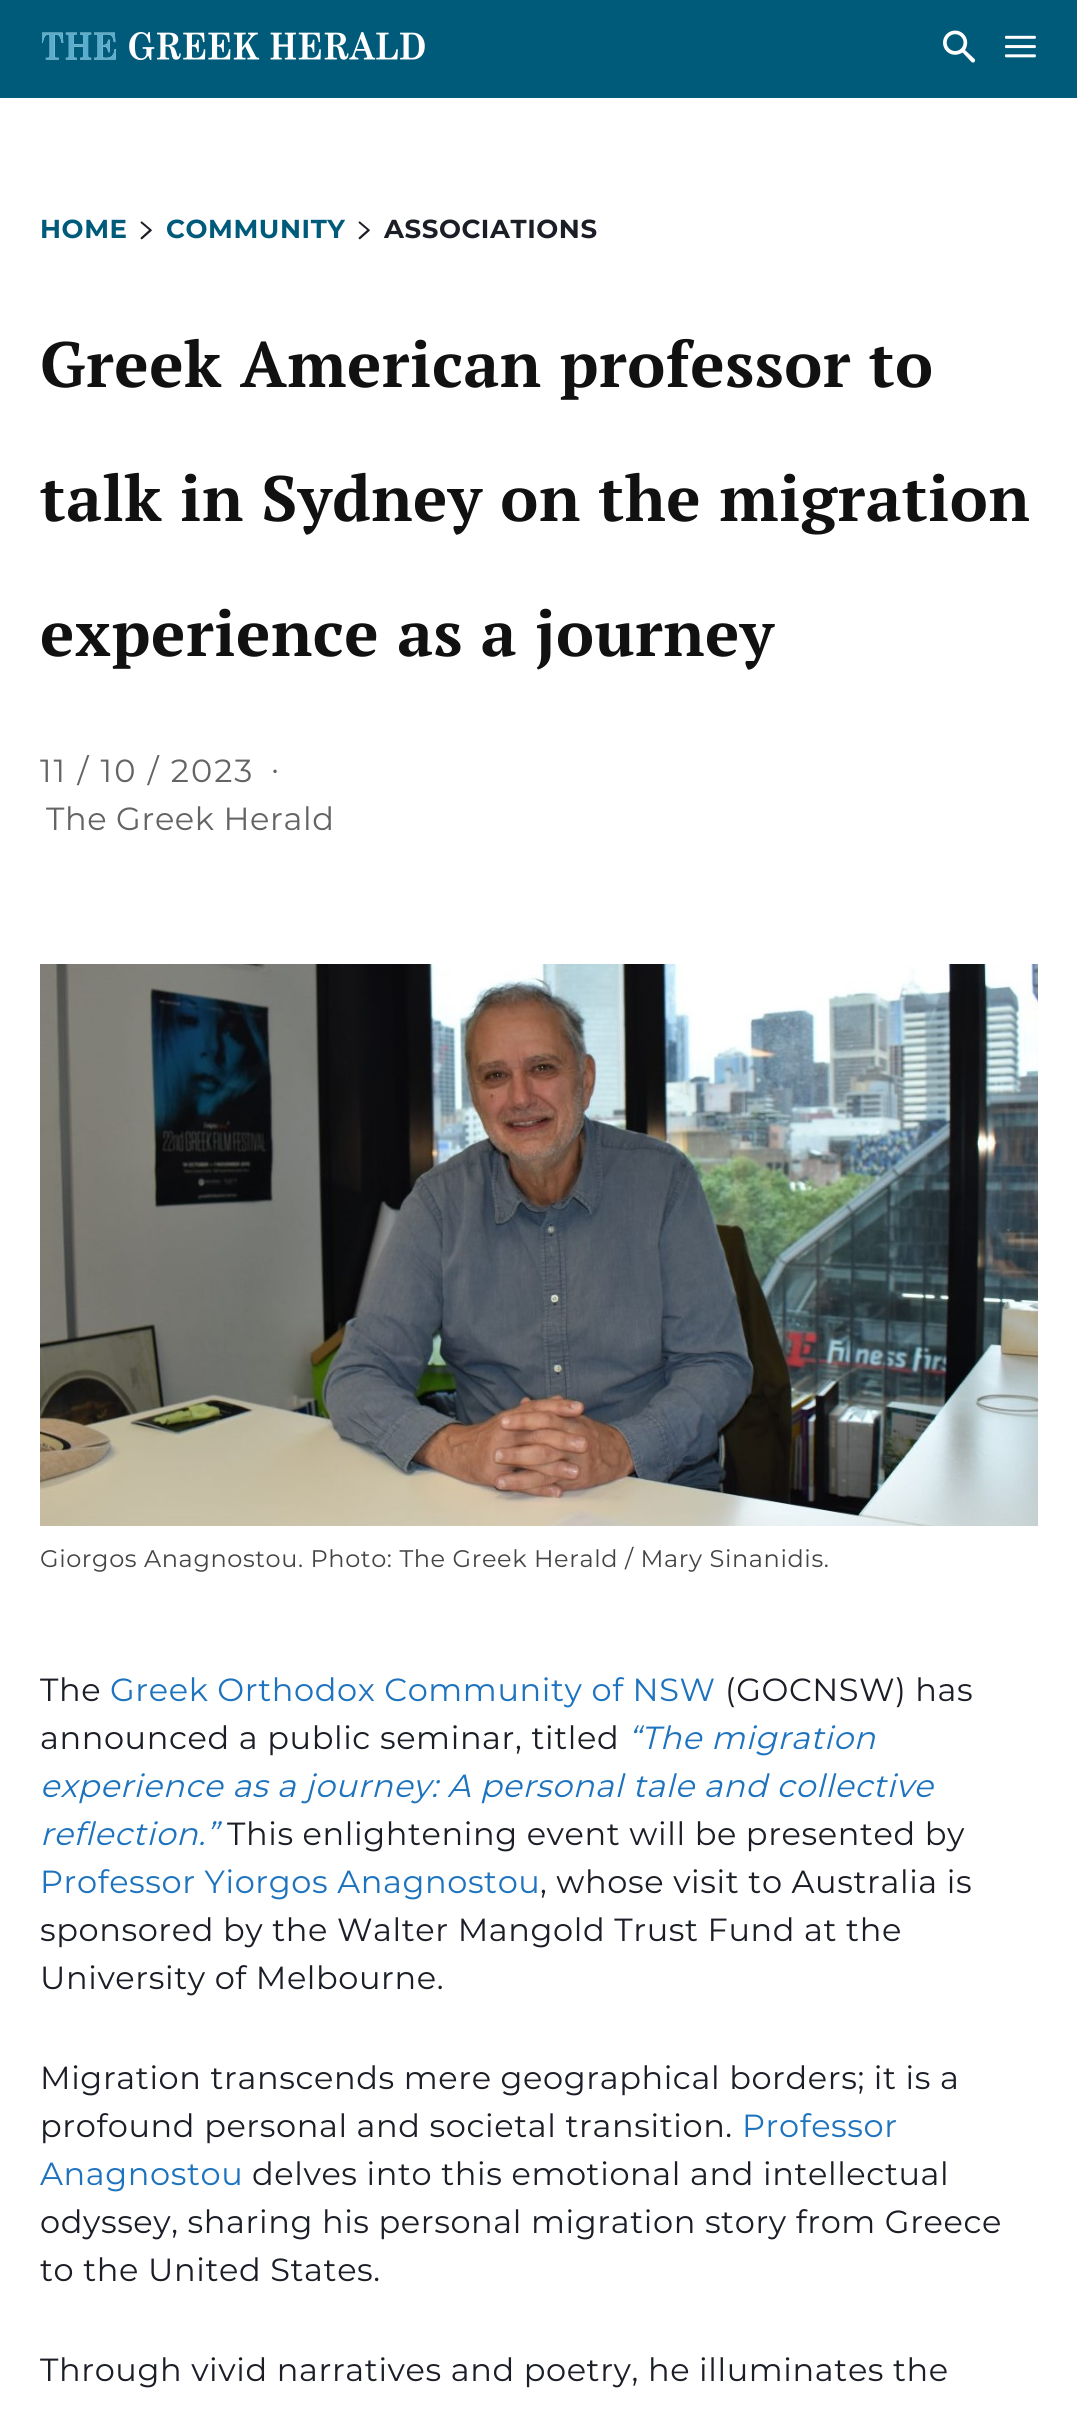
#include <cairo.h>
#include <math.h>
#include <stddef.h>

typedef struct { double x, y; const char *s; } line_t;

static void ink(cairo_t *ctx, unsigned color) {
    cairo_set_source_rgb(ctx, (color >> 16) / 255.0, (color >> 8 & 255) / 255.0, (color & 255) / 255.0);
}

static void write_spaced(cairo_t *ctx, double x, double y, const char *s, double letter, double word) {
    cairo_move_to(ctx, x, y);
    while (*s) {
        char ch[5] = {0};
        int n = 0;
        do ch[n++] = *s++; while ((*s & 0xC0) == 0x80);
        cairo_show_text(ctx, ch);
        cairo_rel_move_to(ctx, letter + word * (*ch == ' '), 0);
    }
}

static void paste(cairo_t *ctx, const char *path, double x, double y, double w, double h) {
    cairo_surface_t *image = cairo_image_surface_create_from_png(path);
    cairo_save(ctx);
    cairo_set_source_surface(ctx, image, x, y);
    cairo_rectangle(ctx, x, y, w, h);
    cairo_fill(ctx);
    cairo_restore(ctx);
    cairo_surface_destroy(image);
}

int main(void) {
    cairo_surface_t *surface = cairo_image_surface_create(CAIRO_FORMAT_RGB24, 1077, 2411);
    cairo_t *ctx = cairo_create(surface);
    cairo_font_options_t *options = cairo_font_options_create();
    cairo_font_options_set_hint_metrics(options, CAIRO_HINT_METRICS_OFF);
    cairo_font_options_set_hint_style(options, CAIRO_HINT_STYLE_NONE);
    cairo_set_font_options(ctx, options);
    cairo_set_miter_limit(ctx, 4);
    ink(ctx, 0xFFFFFF);
    cairo_paint(ctx);
    ink(ctx, 0x005B7A);
    cairo_rectangle(ctx, 0, 0, 1077, 98);
    cairo_fill(ctx);
    paste(ctx, "media/1.png", 42, 32, 383, 28);
    paste(ctx, "media/2.png", 943, 30, 33, 33);
    paste(ctx, "media/3.png", 1005, 35, 31, 23);
    cairo_select_font_face(ctx, "Montserrat", CAIRO_FONT_SLANT_NORMAL, CAIRO_FONT_WEIGHT_BOLD);
    cairo_set_font_size(ctx, 26);
    write_spaced(ctx, 40, 238, "HOME", 0.6, 0);
    paste(ctx, "media/4.png", 140, 221, 12, 19);
    write_spaced(ctx, 166, 238, "COMMUNITY", 0.6, 0);
    paste(ctx, "media/4.png", 358, 221, 12, 19);
    ink(ctx, 0x1B1E26);
    write_spaced(ctx, 384, 238, "ASSOCIATIONS", 0.6, 0);
    cairo_select_font_face(ctx, "PT Serif", CAIRO_FONT_SLANT_NORMAL, CAIRO_FONT_WEIGHT_BOLD);
    cairo_set_font_size(ctx, 64);
    ink(ctx, 0x111111);
    {
        static const line_t items[] = {
            {40, 387, "Greek American professor to"},
            {40, 521, "talk in Sydney on the migration"},
            {40, 656, "experience as a journey"},
        };
        for (size_t i = 0; i < sizeof items / sizeof *items; i++) {
            write_spaced(ctx, items[i].x, items[i].y, items[i].s, 0.6, 0);
        }
    }
    cairo_select_font_face(ctx, "Montserrat", CAIRO_FONT_SLANT_NORMAL, CAIRO_FONT_WEIGHT_NORMAL);
    cairo_set_font_size(ctx, 32);
    ink(ctx, 0x646464);
    write_spaced(ctx, 40, 782, "11 / 10 / 2023", 2, 0);
    write_spaced(ctx, 271, 780, "·", 0.6, 0);
    write_spaced(ctx, 46, 830, "The Greek Herald", 0.6, 0);
    paste(ctx, "media/5.png", 40, 964, 998, 562);
    cairo_set_font_size(ctx, 24);
    ink(ctx, 0x444444);
    write_spaced(ctx, 40, 1567, "Giorgos Anagnostou. Photo: The Greek Herald / Mary Sinanidis.", 0.6, 0);
    cairo_set_font_size(ctx, 32);
    ink(ctx, 0x1B1E26);
    write_spaced(ctx, 40, 1701, "The", 0.6, 0);
    ink(ctx, 0x1E73BE);
    write_spaced(ctx, 110, 1701, "Greek Orthodox Community of NSW", 0.6, 0);
    ink(ctx, 0x1B1E26);
    write_spaced(ctx, 725, 1701, "(GOCNSW) has", 0.6, 0);
    write_spaced(ctx, 40, 1749, "announced a public seminar, titled", 0.6, 0);
    cairo_select_font_face(ctx, "Montserrat", CAIRO_FONT_SLANT_ITALIC, CAIRO_FONT_WEIGHT_NORMAL);
    ink(ctx, 0x1E73BE);
    {
        static const line_t items[] = {
            {628, 1749, "“The migration"},
            {40, 1797, "experience as a journey: A personal tale and collective"},
            {40, 1845, "reflection.”"},
        };
        for (size_t i = 0; i < sizeof items / sizeof *items; i++) {
            write_spaced(ctx, items[i].x, items[i].y, items[i].s, 0.6, 0);
        }
    }
    cairo_select_font_face(ctx, "Montserrat", CAIRO_FONT_SLANT_NORMAL, CAIRO_FONT_WEIGHT_NORMAL);
    ink(ctx, 0x1B1E26);
    write_spaced(ctx, 227, 1845, "This enlightening event will be presented by", 0.6, 0);
    ink(ctx, 0x1E73BE);
    write_spaced(ctx, 40, 1893, "Professor Yiorgos Anagnostou", 0.6, 0);
    ink(ctx, 0x1B1E26);
    {
        static const line_t items[] = {
            {540, 1893, ", whose visit to Australia is"},
            {40, 1941, "sponsored by the Walter Mangold Trust Fund at the"},
            {40, 1989, "University of Melbourne."},
            {40, 2089, "Migration transcends mere geographical borders; it is a"},
            {40, 2137, "profound personal and societal transition."},
        };
        for (size_t i = 0; i < sizeof items / sizeof *items; i++) {
            write_spaced(ctx, items[i].x, items[i].y, items[i].s, 0.6, 0);
        }
    }
    ink(ctx, 0x1E73BE);
    write_spaced(ctx, 742, 2137, "Professor", 0.6, 0);
    write_spaced(ctx, 40, 2185, "Anagnostou", 0.6, 0);
    ink(ctx, 0x1B1E26);
    {
        static const line_t items[] = {
            {252, 2185, "delves into this emotional and intellectual"},
            {40, 2233, "odyssey, sharing his personal migration story from Greece"},
            {40, 2281, "to the United States."},
            {40, 2381, "Through vivid narratives and poetry, he illuminates the"},
        };
        for (size_t i = 0; i < sizeof items / sizeof *items; i++) {
            write_spaced(ctx, items[i].x, items[i].y, items[i].s, 0.6, 0);
        }
    }
    cairo_surface_write_to_png(surface, "image.png");
    cairo_font_options_destroy(options);
    cairo_destroy(ctx);
    cairo_surface_destroy(surface);
    return 0;
}
